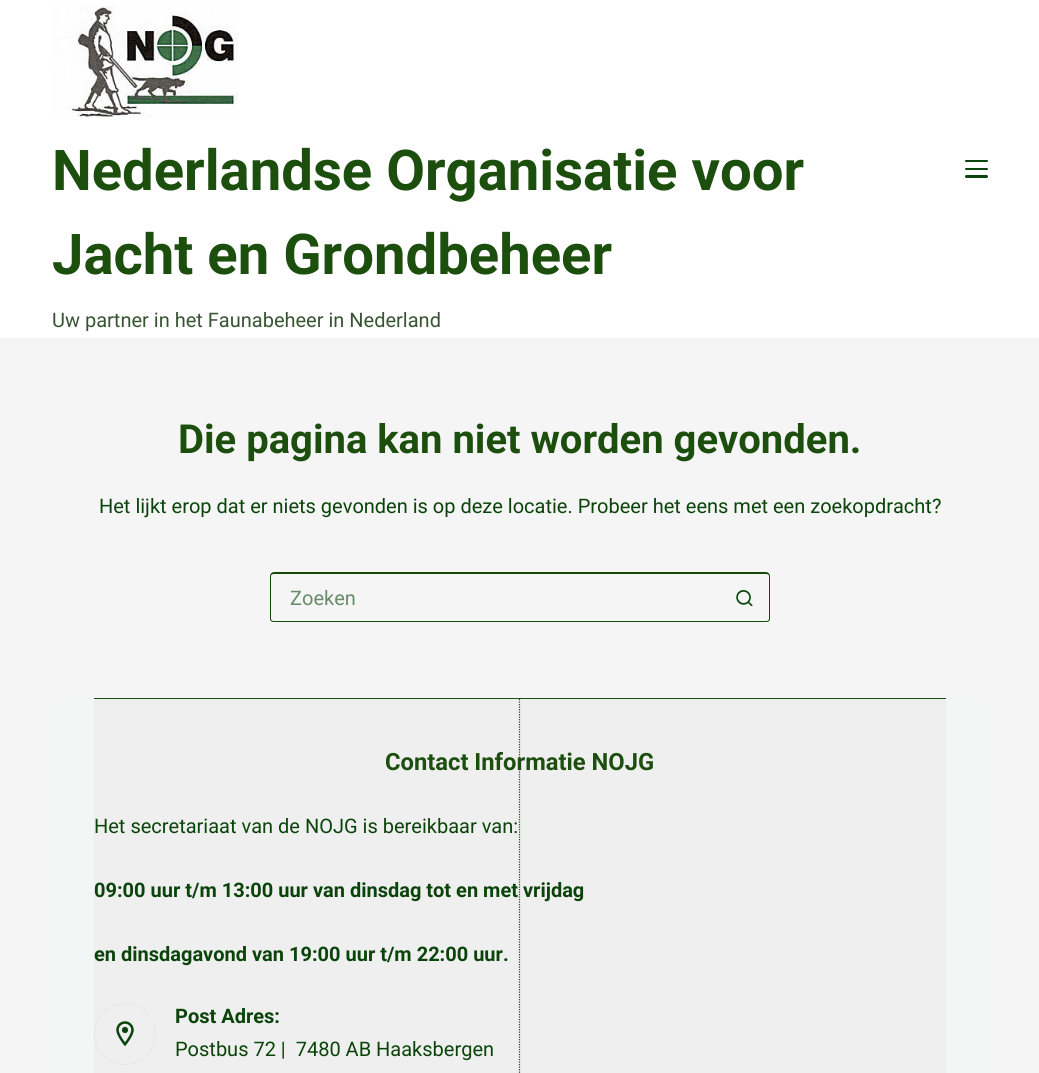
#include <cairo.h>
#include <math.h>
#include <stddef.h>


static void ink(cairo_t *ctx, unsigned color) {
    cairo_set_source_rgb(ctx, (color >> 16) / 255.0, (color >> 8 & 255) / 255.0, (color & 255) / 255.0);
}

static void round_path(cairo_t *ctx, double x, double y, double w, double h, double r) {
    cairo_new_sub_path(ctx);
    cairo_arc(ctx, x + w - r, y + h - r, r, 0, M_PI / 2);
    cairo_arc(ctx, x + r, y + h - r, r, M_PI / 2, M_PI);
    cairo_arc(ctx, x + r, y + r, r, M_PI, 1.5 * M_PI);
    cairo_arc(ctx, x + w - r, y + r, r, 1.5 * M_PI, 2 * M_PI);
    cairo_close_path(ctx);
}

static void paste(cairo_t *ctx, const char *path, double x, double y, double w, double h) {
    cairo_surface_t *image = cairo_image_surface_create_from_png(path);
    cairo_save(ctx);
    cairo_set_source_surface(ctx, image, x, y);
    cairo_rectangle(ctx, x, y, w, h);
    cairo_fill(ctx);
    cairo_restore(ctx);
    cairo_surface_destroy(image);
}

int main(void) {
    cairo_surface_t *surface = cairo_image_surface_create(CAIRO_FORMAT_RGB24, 1039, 1073);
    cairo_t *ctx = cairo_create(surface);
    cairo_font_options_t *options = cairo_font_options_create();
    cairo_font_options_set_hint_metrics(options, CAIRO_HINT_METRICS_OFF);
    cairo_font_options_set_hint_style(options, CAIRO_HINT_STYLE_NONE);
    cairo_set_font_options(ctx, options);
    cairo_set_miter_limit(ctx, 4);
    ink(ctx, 0xF5F5F6);
    cairo_paint(ctx);
    ink(ctx, 0xFFFFFF);
    cairo_rectangle(ctx, 0, 0, 1039, 338);
    cairo_fill(ctx);
    paste(ctx, "media/1.png", 53, 4, 185, 114);
    cairo_select_font_face(ctx, "Roboto", CAIRO_FONT_SLANT_NORMAL, CAIRO_FONT_WEIGHT_BOLD);
    cairo_set_font_size(ctx, 56.25);
    ink(ctx, 0x1C4E0E);
    cairo_move_to(ctx, 52, 190);
    cairo_show_text(ctx, "Nederlandse Organisatie voor");
    cairo_move_to(ctx, 52, 274);
    cairo_show_text(ctx, "Jacht en Grondbeheer");
    cairo_select_font_face(ctx, "Roboto", CAIRO_FONT_SLANT_NORMAL, CAIRO_FONT_WEIGHT_NORMAL);
    cairo_set_font_size(ctx, 20);
    ink(ctx, 0x385533);
    cairo_move_to(ctx, 52, 327);
    cairo_show_text(ctx, "Uw partner in het Faunabeheer in Nederland");
    ink(ctx, 0x0A440A);
    round_path(ctx, 965, 160, 23, 2, 1);
    cairo_fill(ctx);
    round_path(ctx, 965, 168, 23, 2, 1);
    cairo_fill(ctx);
    round_path(ctx, 965, 175, 23, 3, 1.5);
    cairo_fill(ctx);
    cairo_select_font_face(ctx, "Roboto", CAIRO_FONT_SLANT_NORMAL, CAIRO_FONT_WEIGHT_BOLD);
    cairo_set_font_size(ctx, 40);
    ink(ctx, 0x1C4E0E);
    cairo_move_to(ctx, 178, 453);
    cairo_show_text(ctx, "Die pagina kan niet worden gevonden.");
    cairo_select_font_face(ctx, "Roboto", CAIRO_FONT_SLANT_NORMAL, CAIRO_FONT_WEIGHT_NORMAL);
    cairo_set_font_size(ctx, 20);
    ink(ctx, 0x0A440A);
    cairo_move_to(ctx, 99, 513);
    cairo_show_text(ctx, "Het lijkt erop dat er niets gevonden is op deze locatie. Probeer het eens met een zoekopdracht?");
    ink(ctx, 0x144907);
    cairo_set_fill_rule(ctx, CAIRO_FILL_RULE_EVEN_ODD);
    cairo_new_path(ctx);
    cairo_move_to(ctx, 274, 572);
    cairo_line_to(ctx, 720, 572);
    cairo_line_to(ctx, 720, 622);
    cairo_line_to(ctx, 274, 622);
    cairo_curve_to(ctx, 272, 622, 270, 621, 270, 619);
    cairo_line_to(ctx, 270, 576);
    cairo_curve_to(ctx, 270, 574, 272, 572, 274, 572);
    cairo_close_path(ctx);
    cairo_move_to(ctx, 274, 574);
    cairo_line_to(ctx, 720, 574);
    cairo_line_to(ctx, 720, 621);
    cairo_line_to(ctx, 274, 621);
    cairo_curve_to(ctx, 272, 621, 271, 620, 271, 619);
    cairo_line_to(ctx, 271, 576);
    cairo_curve_to(ctx, 271, 575, 272, 574, 274, 574);
    cairo_close_path(ctx);
    cairo_fill(ctx);
    ink(ctx, 0x688B68);
    cairo_move_to(ctx, 290, 605);
    cairo_show_text(ctx, "Zoeken");
    ink(ctx, 0x144907);
    cairo_new_path(ctx);
    cairo_move_to(ctx, 720, 572);
    cairo_line_to(ctx, 766, 572);
    cairo_curve_to(ctx, 768, 572, 770, 574, 770, 576);
    cairo_line_to(ctx, 770, 619);
    cairo_curve_to(ctx, 770, 621, 768, 622, 766, 622);
    cairo_line_to(ctx, 720, 622);
    cairo_close_path(ctx);
    cairo_move_to(ctx, 720, 574);
    cairo_line_to(ctx, 766, 574);
    cairo_curve_to(ctx, 768, 574, 769, 575, 769, 576);
    cairo_line_to(ctx, 769, 619);
    cairo_curve_to(ctx, 769, 620, 768, 621, 766, 621);
    cairo_line_to(ctx, 720, 621);
    cairo_close_path(ctx);
    cairo_fill(ctx);
    paste(ctx, "media/2.png", 736, 590, 17, 16);
    ink(ctx, 0xF2F7F6);
    round_path(ctx, 53, 698, 935, 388, 13);
    cairo_fill(ctx);
    ink(ctx, 0xEFEFEF);
    cairo_rectangle(ctx, 94, 699, 852, 374);
    cairo_fill(ctx);
    ink(ctx, 0x1C4E0E);
    cairo_rectangle(ctx, 94, 698, 852, 1);
    cairo_fill(ctx);
    cairo_select_font_face(ctx, "Roboto", CAIRO_FONT_SLANT_NORMAL, CAIRO_FONT_WEIGHT_BOLD);
    ink(ctx, 0x0A440A);
    cairo_move_to(ctx, 94, 897);
    cairo_show_text(ctx, "09:00 uur t/m 13:00 uur van dinsdag tot en met vrijdag");
    cairo_new_path(ctx);
    cairo_move_to(ctx, 519.5, 699);
    cairo_line_to(ctx, 519.5, 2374);
    ink(ctx, 0x1C4E0E);
    cairo_set_line_width(ctx, 1.2);
    cairo_set_dash(ctx, (double[]){1.25, 1.25}, 2, 0);
    cairo_stroke(ctx);
    cairo_set_font_size(ctx, 23.75);
    cairo_move_to(ctx, 385, 770);
    cairo_show_text(ctx, "Contact Informatie NOJG");
    cairo_select_font_face(ctx, "Roboto", CAIRO_FONT_SLANT_NORMAL, CAIRO_FONT_WEIGHT_NORMAL);
    cairo_set_font_size(ctx, 20);
    ink(ctx, 0x0A440A);
    cairo_move_to(ctx, 94, 833);
    cairo_show_text(ctx, "Het secretariaat van de NOJG is bereikbaar van:");
    cairo_select_font_face(ctx, "Roboto", CAIRO_FONT_SLANT_NORMAL, CAIRO_FONT_WEIGHT_BOLD);
    cairo_move_to(ctx, 94, 961);
    cairo_show_text(ctx, "en dinsdagavond van 19:00 uur t/m 22:00 uur.");
    cairo_new_path(ctx);
    cairo_arc(ctx, 125, 1034, 30.5, 0, 2 * M_PI);
    ink(ctx, 0xE5E7EA);
    cairo_set_line_width(ctx, 1);
    cairo_set_dash(ctx, NULL, 0, 0);
    cairo_stroke(ctx);
    paste(ctx, "media/3.png", 116, 1021, 18, 25);
    ink(ctx, 0x0A440A);
    cairo_move_to(ctx, 175, 1023);
    cairo_show_text(ctx, "Post Adres:");
    cairo_select_font_face(ctx, "Roboto", CAIRO_FONT_SLANT_NORMAL, CAIRO_FONT_WEIGHT_NORMAL);
    cairo_move_to(ctx, 175, 1056);
    cairo_show_text(ctx, "Postbus 72 |  7480 AB Haaksbergen");
    cairo_surface_write_to_png(surface, "image.png");
    cairo_font_options_destroy(options);
    cairo_destroy(ctx);
    cairo_surface_destroy(surface);
    return 0;
}
